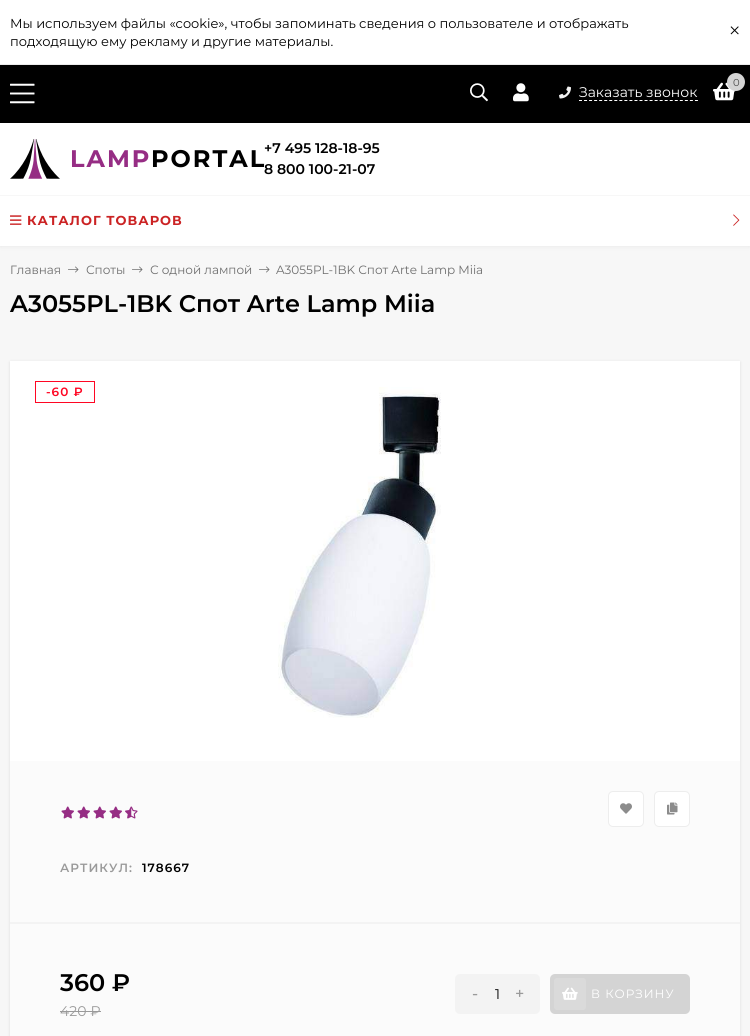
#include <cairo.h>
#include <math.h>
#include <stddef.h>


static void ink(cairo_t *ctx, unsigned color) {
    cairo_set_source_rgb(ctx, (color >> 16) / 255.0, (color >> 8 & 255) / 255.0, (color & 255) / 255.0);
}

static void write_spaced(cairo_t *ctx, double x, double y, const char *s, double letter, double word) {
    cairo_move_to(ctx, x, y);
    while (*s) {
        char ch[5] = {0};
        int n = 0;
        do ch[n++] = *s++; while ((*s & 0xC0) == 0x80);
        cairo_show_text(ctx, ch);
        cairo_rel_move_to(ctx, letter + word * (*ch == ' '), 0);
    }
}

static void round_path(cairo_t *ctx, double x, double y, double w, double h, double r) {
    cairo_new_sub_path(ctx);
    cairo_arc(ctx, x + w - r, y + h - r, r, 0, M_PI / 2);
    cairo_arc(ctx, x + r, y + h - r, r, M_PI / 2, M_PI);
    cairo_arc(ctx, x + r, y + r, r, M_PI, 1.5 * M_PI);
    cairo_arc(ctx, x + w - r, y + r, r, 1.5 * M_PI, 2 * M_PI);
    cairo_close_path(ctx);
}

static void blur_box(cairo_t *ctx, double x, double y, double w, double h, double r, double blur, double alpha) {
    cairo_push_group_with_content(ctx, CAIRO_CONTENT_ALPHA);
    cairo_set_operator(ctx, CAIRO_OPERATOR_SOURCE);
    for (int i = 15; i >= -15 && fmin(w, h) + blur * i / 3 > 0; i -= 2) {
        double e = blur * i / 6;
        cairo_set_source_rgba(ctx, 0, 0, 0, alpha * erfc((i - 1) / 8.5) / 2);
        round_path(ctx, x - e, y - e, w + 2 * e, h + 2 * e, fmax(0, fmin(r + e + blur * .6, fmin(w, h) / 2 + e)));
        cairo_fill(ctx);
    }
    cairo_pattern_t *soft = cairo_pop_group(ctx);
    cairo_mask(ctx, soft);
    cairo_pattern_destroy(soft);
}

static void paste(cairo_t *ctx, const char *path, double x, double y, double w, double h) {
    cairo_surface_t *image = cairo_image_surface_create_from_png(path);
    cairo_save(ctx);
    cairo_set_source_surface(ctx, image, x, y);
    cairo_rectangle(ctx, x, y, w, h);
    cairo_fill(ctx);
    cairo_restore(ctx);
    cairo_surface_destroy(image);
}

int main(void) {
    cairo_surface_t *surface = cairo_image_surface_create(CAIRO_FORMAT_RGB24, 750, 1036);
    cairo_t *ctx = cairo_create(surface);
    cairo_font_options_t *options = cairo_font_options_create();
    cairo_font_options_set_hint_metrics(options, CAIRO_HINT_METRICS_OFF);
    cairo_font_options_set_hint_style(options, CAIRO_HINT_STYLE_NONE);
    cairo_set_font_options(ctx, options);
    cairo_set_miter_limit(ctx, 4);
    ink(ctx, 0xF7F7F7);
    cairo_paint(ctx);
    ink(ctx, 0x404040);
    blur_box(ctx, 0, 65, 750, 181, 0, 2.5, 0.1);
    ink(ctx, 0xFFFFFF);
    cairo_rectangle(ctx, 0, 0, 750, 64);
    cairo_fill(ctx);
    ink(ctx, 0xEBEBEB);
    cairo_rectangle(ctx, 0, 64, 750, 1);
    cairo_fill(ctx);
    cairo_select_font_face(ctx, "Montserrat", CAIRO_FONT_SLANT_NORMAL, CAIRO_FONT_WEIGHT_NORMAL);
    cairo_set_font_size(ctx, 13);
    ink(ctx, 0x000000);
    cairo_move_to(ctx, 10, 28);
    cairo_show_text(ctx, "Мы используем файлы «cookie», чтобы запоминать сведения о пользователе и отображать");
    cairo_move_to(ctx, 10, 46);
    cairo_show_text(ctx, "подходящую ему рекламу и другие материалы.");
    cairo_select_font_face(ctx, "Liberation Serif", CAIRO_FONT_SLANT_NORMAL, CAIRO_FONT_WEIGHT_NORMAL);
    cairo_set_font_size(ctx, 20);
    cairo_move_to(ctx, 729, 37);
    cairo_show_text(ctx, "×");
    cairo_rectangle(ctx, 0, 65, 750, 58);
    cairo_fill(ctx);
    paste(ctx, "media/1.png", 10, 83, 25, 21);
    paste(ctx, "media/2.png", 470, 83, 18, 19);
    paste(ctx, "media/3.png", 513, 83, 16, 19);
    paste(ctx, "media/4.png", 559, 86, 12, 13);
    cairo_new_path(ctx);
    cairo_move_to(ctx, 579, 100.5);
    cairo_line_to(ctx, 698, 100.5);
    ink(ctx, 0xFFFFFF);
    cairo_set_line_width(ctx, 1);
    cairo_set_dash(ctx, (double[]){3, 2.04}, 2, 0);
    cairo_stroke(ctx);
    cairo_select_font_face(ctx, "Montserrat", CAIRO_FONT_SLANT_NORMAL, CAIRO_FONT_WEIGHT_NORMAL);
    cairo_set_font_size(ctx, 14);
    cairo_move_to(ctx, 579, 97);
    cairo_show_text(ctx, "Заказать звонок");
    paste(ctx, "media/5.png", 713, 82, 23, 19);
    ink(ctx, 0xD4D4D4);
    cairo_arc(ctx, 736, 82, 9, 0, 2 * M_PI);
    cairo_fill(ctx);
    cairo_set_font_size(ctx, 10);
    ink(ctx, 0x4A4A4A);
    cairo_move_to(ctx, 733, 86);
    cairo_show_text(ctx, "0");
    ink(ctx, 0xFFFFFF);
    cairo_rectangle(ctx, 0, 123, 750, 72);
    cairo_fill(ctx);
    paste(ctx, "media/6.png", 10, 139, 50, 40);
    cairo_select_font_face(ctx, "Montserrat", CAIRO_FONT_SLANT_NORMAL, CAIRO_FONT_WEIGHT_BOLD);
    cairo_set_font_size(ctx, 24);
    ink(ctx, 0x962D84);
    write_spaced(ctx, 70, 167, "LAMP", 2, 0);
    ink(ctx, 0x000000);
    write_spaced(ctx, 151, 167, "PORTAL", 2, 0);
    cairo_select_font_face(ctx, "Montserrat SemiBold", CAIRO_FONT_SLANT_NORMAL, CAIRO_FONT_WEIGHT_NORMAL);
    cairo_set_font_size(ctx, 14);
    cairo_move_to(ctx, 264, 153);
    cairo_show_text(ctx, "+7 495 128-18-95");
    cairo_move_to(ctx, 264, 174);
    cairo_show_text(ctx, "8 800 100-21-07");
    ink(ctx, 0xFFFFFF);
    cairo_rectangle(ctx, 0, 196, 750, 50);
    cairo_fill(ctx);
    ink(ctx, 0xF7F7F7);
    cairo_rectangle(ctx, 0, 195, 750, 1);
    cairo_fill(ctx);
    paste(ctx, "media/7.png", 10, 215, 12, 10);
    cairo_select_font_face(ctx, "Montserrat", CAIRO_FONT_SLANT_NORMAL, CAIRO_FONT_WEIGHT_BOLD);
    cairo_set_font_size(ctx, 13);
    ink(ctx, 0xCB2324);
    write_spaced(ctx, 27, 225, "КАТАЛОГ ТОВАРОВ", 1, 0);
    paste(ctx, "media/8.png", 733, 214, 7, 12);
    cairo_select_font_face(ctx, "Montserrat", CAIRO_FONT_SLANT_NORMAL, CAIRO_FONT_WEIGHT_NORMAL);
    cairo_set_font_size(ctx, 12);
    ink(ctx, 0x6E6E6E);
    cairo_move_to(ctx, 10, 274);
    cairo_show_text(ctx, "Главная");
    paste(ctx, "media/9.png", 68, 266, 11, 7);
    cairo_move_to(ctx, 86, 274);
    cairo_show_text(ctx, "Споты");
    paste(ctx, "media/9.png", 132, 266, 11, 7);
    cairo_move_to(ctx, 150, 274);
    cairo_show_text(ctx, "С одной лампой");
    paste(ctx, "media/9.png", 259, 266, 11, 7);
    cairo_move_to(ctx, 276, 274);
    cairo_show_text(ctx, "A3055PL-1BK Спот Arte Lamp Miia");
    cairo_select_font_face(ctx, "Montserrat SemiBold", CAIRO_FONT_SLANT_NORMAL, CAIRO_FONT_WEIGHT_NORMAL);
    cairo_set_font_size(ctx, 24);
    ink(ctx, 0x000000);
    cairo_move_to(ctx, 10, 312);
    cairo_show_text(ctx, "A3055PL-1BK Спот Arte Lamp Miia");
    ink(ctx, 0x000000);
    blur_box(ctx, 10, 362, 730, 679, 0, 1.5, 0.1);
    ink(ctx, 0xFFFFFF);
    cairo_rectangle(ctx, 10, 361, 730, 400);
    cairo_fill(ctx);
    cairo_rectangle(ctx, 35.5, 381.5, 59, 21);
    ink(ctx, 0xFF0623);
    cairo_set_dash(ctx, NULL, 0, 0);
    cairo_stroke(ctx);
    cairo_set_font_size(ctx, 12);
    write_spaced(ctx, 46, 396, "-60 ₽", 1, 0);
    paste(ctx, "media/10.png", 278, 387, 163, 331);
    ink(ctx, 0xFBFBFB);
    cairo_rectangle(ctx, 10, 761, 730, 275);
    cairo_fill(ctx);
    paste(ctx, "media/11.png", 61, 806, 13, 13);
    paste(ctx, "media/11.png", 77, 806, 13, 13);
    paste(ctx, "media/11.png", 93, 806, 13, 13);
    paste(ctx, "media/11.png", 109, 806, 13, 13);
    paste(ctx, "media/12.png", 125, 806, 13, 13);
    ink(ctx, 0xFFFFFF);
    round_path(ctx, 608.5, 791.5, 35, 35, 4.5);
    cairo_fill_preserve(ctx);
    ink(ctx, 0xEDEDED);
    cairo_stroke(ctx);
    paste(ctx, "media/13.png", 620, 803, 12, 11);
    ink(ctx, 0xFFFFFF);
    round_path(ctx, 654.5, 791.5, 35, 35, 4.5);
    cairo_fill_preserve(ctx);
    ink(ctx, 0xEDEDED);
    cairo_stroke(ctx);
    paste(ctx, "media/14.png", 667, 802, 11, 13);
    ink(ctx, 0x9A9A9A);
    write_spaced(ctx, 60, 872, "АРТИКУЛ:", 1, 0);
    ink(ctx, 0x000000);
    write_spaced(ctx, 142, 872, "178667", 1, 0);
    ink(ctx, 0xF3F3F3);
    cairo_rectangle(ctx, 10, 922, 730, 2);
    cairo_fill(ctx);
    cairo_set_font_size(ctx, 24);
    ink(ctx, 0x000000);
    cairo_move_to(ctx, 60, 991);
    cairo_show_text(ctx, "360 ₽");
    cairo_select_font_face(ctx, "Montserrat", CAIRO_FONT_SLANT_NORMAL, CAIRO_FONT_WEIGHT_NORMAL);
    cairo_set_font_size(ctx, 14);
    ink(ctx, 0x9A9A9A);
    cairo_move_to(ctx, 60, 1016);
    cairo_show_text(ctx, "420 ₽");
    cairo_rectangle(ctx, 60, 1011, 41, 1);
    cairo_fill(ctx);
    ink(ctx, 0xF3F3F3);
    round_path(ctx, 455, 974, 85, 40, 5);
    cairo_fill(ctx);
    cairo_select_font_face(ctx, "Montserrat Medium", CAIRO_FONT_SLANT_NORMAL, CAIRO_FONT_WEIGHT_NORMAL);
    cairo_set_font_size(ctx, 16);
    ink(ctx, 0x9A9A9A);
    write_spaced(ctx, 472, 999, "-", 1, 0);
    cairo_select_font_face(ctx, "Montserrat", CAIRO_FONT_SLANT_NORMAL, CAIRO_FONT_WEIGHT_NORMAL);
    cairo_set_font_size(ctx, 14);
    ink(ctx, 0x000000);
    cairo_move_to(ctx, 495, 999);
    cairo_show_text(ctx, "1");
    cairo_select_font_face(ctx, "Montserrat Medium", CAIRO_FONT_SLANT_NORMAL, CAIRO_FONT_WEIGHT_NORMAL);
    cairo_set_font_size(ctx, 16);
    ink(ctx, 0x9A9A9A);
    write_spaced(ctx, 515, 999, "+", 1, 0);
    ink(ctx, 0xD4D4D4);
    round_path(ctx, 550, 974, 140, 40, 5);
    cairo_fill(ctx);
    ink(ctx, 0xDADADA);
    round_path(ctx, 554, 978, 32, 32, 3);
    cairo_fill(ctx);
    paste(ctx, "media/15.png", 562, 987, 16, 13);
    cairo_select_font_face(ctx, "Montserrat", CAIRO_FONT_SLANT_NORMAL, CAIRO_FONT_WEIGHT_NORMAL);
    cairo_set_font_size(ctx, 12);
    ink(ctx, 0xFFFFFF);
    write_spaced(ctx, 591, 998, "В КОРЗИНУ", 1, 0);
    cairo_surface_write_to_png(surface, "image.png");
    cairo_font_options_destroy(options);
    cairo_destroy(ctx);
    cairo_surface_destroy(surface);
    return 0;
}
